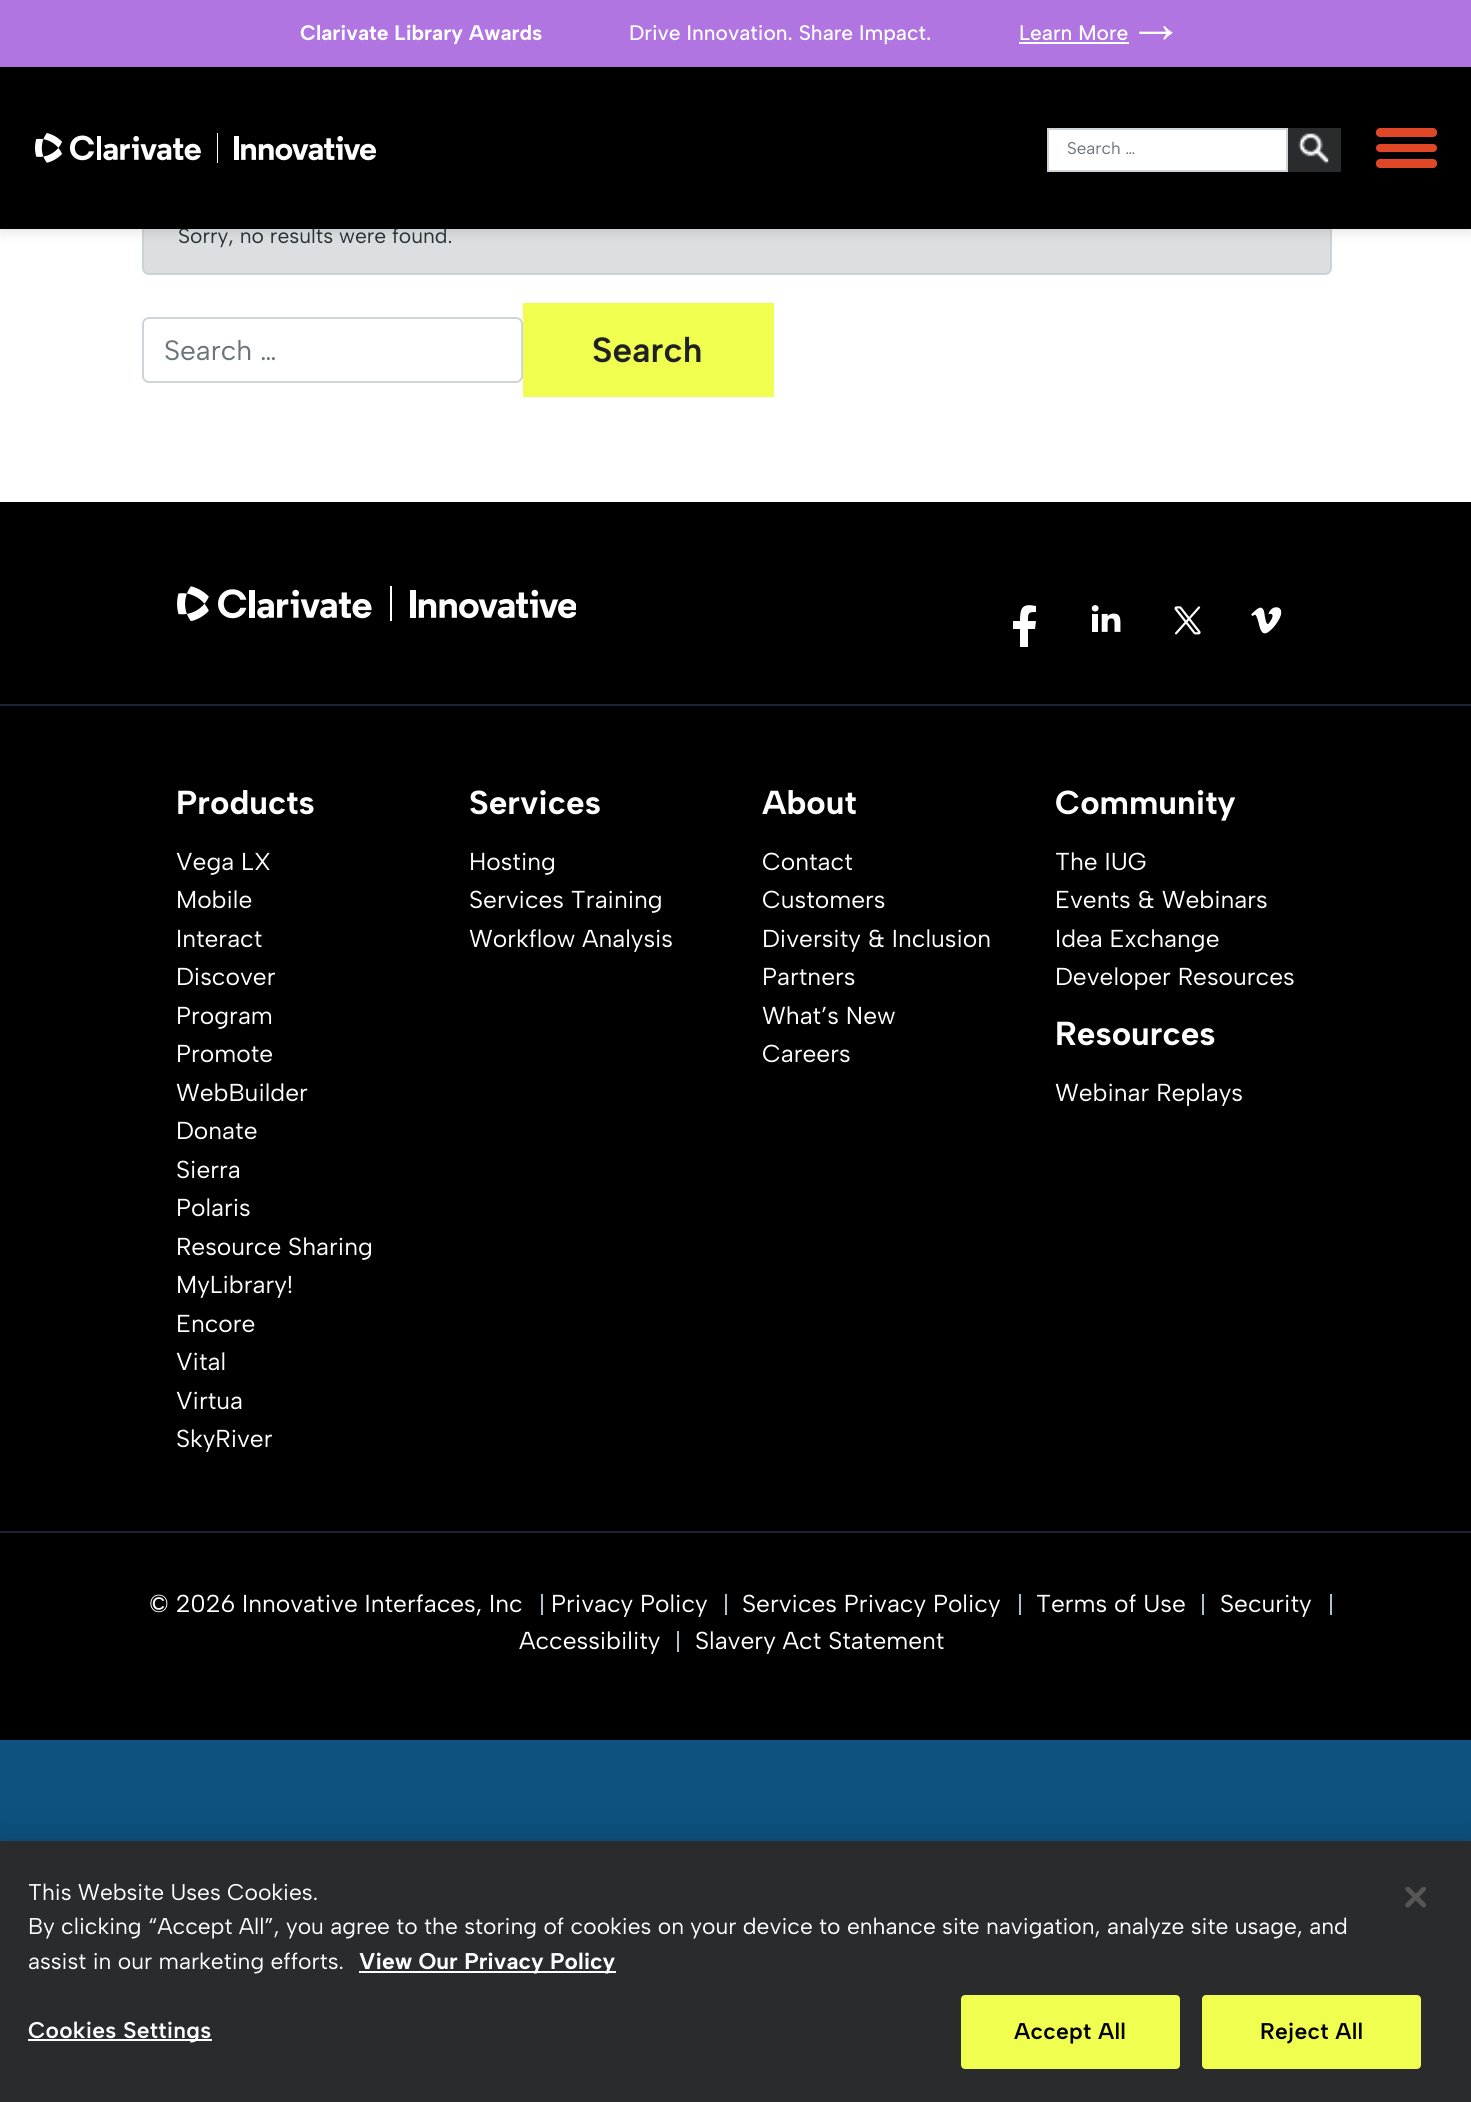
#include <cairo.h>
#include <math.h>
#include <stddef.h>

typedef struct { double x, y; const char *s; } line_t;

static void ink(cairo_t *ctx, unsigned color) {
    cairo_set_source_rgb(ctx, (color >> 16) / 255.0, (color >> 8 & 255) / 255.0, (color & 255) / 255.0);
}

static void write_spaced(cairo_t *ctx, double x, double y, const char *s, double letter, double word) {
    cairo_move_to(ctx, x, y);
    while (*s) {
        char ch[5] = {0};
        int n = 0;
        do ch[n++] = *s++; while ((*s & 0xC0) == 0x80);
        cairo_show_text(ctx, ch);
        cairo_rel_move_to(ctx, letter + word * (*ch == ' '), 0);
    }
}

static void round_path(cairo_t *ctx, double x, double y, double w, double h, double r) {
    cairo_new_sub_path(ctx);
    cairo_arc(ctx, x + w - r, y + h - r, r, 0, M_PI / 2);
    cairo_arc(ctx, x + r, y + h - r, r, M_PI / 2, M_PI);
    cairo_arc(ctx, x + r, y + r, r, M_PI, 1.5 * M_PI);
    cairo_arc(ctx, x + w - r, y + r, r, 1.5 * M_PI, 2 * M_PI);
    cairo_close_path(ctx);
}

static void blur_box(cairo_t *ctx, double x, double y, double w, double h, double r, double blur, double alpha) {
    cairo_push_group_with_content(ctx, CAIRO_CONTENT_ALPHA);
    cairo_set_operator(ctx, CAIRO_OPERATOR_SOURCE);
    for (int i = 15; i >= -15 && fmin(w, h) + blur * i / 3 > 0; i -= 2) {
        double e = blur * i / 6;
        cairo_set_source_rgba(ctx, 0, 0, 0, alpha * erfc((i - 1) / 8.5) / 2);
        round_path(ctx, x - e, y - e, w + 2 * e, h + 2 * e, fmax(0, fmin(r + e + blur * .6, fmin(w, h) / 2 + e)));
        cairo_fill(ctx);
    }
    cairo_pattern_t *soft = cairo_pop_group(ctx);
    cairo_mask(ctx, soft);
    cairo_pattern_destroy(soft);
}

static void paste(cairo_t *ctx, const char *path, double x, double y, double w, double h) {
    cairo_surface_t *image = cairo_image_surface_create_from_png(path);
    cairo_save(ctx);
    cairo_set_source_surface(ctx, image, x, y);
    cairo_rectangle(ctx, x, y, w, h);
    cairo_fill(ctx);
    cairo_restore(ctx);
    cairo_surface_destroy(image);
}

int main(void) {
    cairo_surface_t *surface = cairo_image_surface_create(CAIRO_FORMAT_RGB24, 1471, 2102);
    cairo_t *ctx = cairo_create(surface);
    cairo_font_options_t *options = cairo_font_options_create();
    cairo_font_options_set_hint_metrics(options, CAIRO_HINT_METRICS_OFF);
    cairo_font_options_set_hint_style(options, CAIRO_HINT_STYLE_NONE);
    cairo_set_font_options(ctx, options);
    cairo_set_miter_limit(ctx, 4);
    ink(ctx, 0x0D5280);
    cairo_paint(ctx);
    ink(ctx, 0xFFFFFF);
    cairo_rectangle(ctx, 0, 229, 1471, 273);
    cairo_fill(ctx);
    ink(ctx, 0xDBDFE1);
    round_path(ctx, 143, 199, 1188, 75, 6);
    cairo_fill_preserve(ctx);
    ink(ctx, 0xCDD2D5);
    cairo_stroke(ctx);
    ink(ctx, 0x000000);
    blur_box(ctx, 0, 4, 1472, 229, 0, 6, 0.1);
    cairo_select_font_face(ctx, "Albert Sans", CAIRO_FONT_SLANT_NORMAL, CAIRO_FONT_WEIGHT_NORMAL);
    cairo_set_font_size(ctx, 21);
    ink(ctx, 0x283137);
    cairo_move_to(ctx, 178, 243);
    cairo_show_text(ctx, "Sorry, no results were found.");
    ink(ctx, 0x000000);
    cairo_rectangle(ctx, 0, 67, 1471, 162);
    cairo_fill(ctx);
    ink(ctx, 0xB175E1);
    cairo_rectangle(ctx, 0, 0, 1471, 67);
    cairo_fill(ctx);
    cairo_select_font_face(ctx, "Albert Sans", CAIRO_FONT_SLANT_NORMAL, CAIRO_FONT_WEIGHT_BOLD);
    ink(ctx, 0xFFFFFF);
    cairo_move_to(ctx, 300, 40);
    cairo_show_text(ctx, "Clarivate Library Awards");
    cairo_select_font_face(ctx, "Albert Sans Medium", CAIRO_FONT_SLANT_NORMAL, CAIRO_FONT_WEIGHT_NORMAL);
    cairo_move_to(ctx, 629, 40);
    cairo_show_text(ctx, "Drive Innovation. Share Impact.");
    paste(ctx, "media/1.png", 1139, 26, 34, 14);
    cairo_move_to(ctx, 1019, 40);
    cairo_show_text(ctx, "Learn More");
    cairo_rectangle(ctx, 1019, 42, 110, 2);
    cairo_fill(ctx);
    paste(ctx, "media/2.png", 35, 133, 341, 30);
    cairo_rectangle(ctx, 1048, 129, 239, 42);
    cairo_fill_preserve(ctx);
    ink(ctx, 0xCED4DA);
    cairo_stroke(ctx);
    cairo_select_font_face(ctx, "Albert Sans", CAIRO_FONT_SLANT_NORMAL, CAIRO_FONT_WEIGHT_NORMAL);
    cairo_set_font_size(ctx, 17);
    ink(ctx, 0x6C757D);
    cairo_move_to(ctx, 1067, 154);
    cairo_show_text(ctx, "Search …");
    ink(ctx, 0x2A2B2D);
    cairo_rectangle(ctx, 1288, 128, 53, 44);
    cairo_fill(ctx);
    paste(ctx, "media/3.png", 1298, 133, 31, 31);
    ink(ctx, 0xE04726);
    round_path(ctx, 1376, 128, 61, 9, 4);
    cairo_fill(ctx);
    round_path(ctx, 1376, 144, 61, 8, 4);
    cairo_fill(ctx);
    round_path(ctx, 1376, 159, 61, 9, 4);
    cairo_fill(ctx);
    round_path(ctx, 143, 318, 379, 64, 6);
    ink(ctx, 0xCED4DA);
    cairo_stroke(ctx);
    cairo_set_font_size(ctx, 28);
    ink(ctx, 0x6C757D);
    cairo_move_to(ctx, 164, 360);
    cairo_show_text(ctx, "Search …");
    ink(ctx, 0xF0FE4F);
    cairo_rectangle(ctx, 523, 303, 251, 94);
    cairo_fill(ctx);
    cairo_select_font_face(ctx, "Albert Sans SemiBold", CAIRO_FONT_SLANT_NORMAL, CAIRO_FONT_WEIGHT_NORMAL);
    cairo_set_font_size(ctx, 35);
    ink(ctx, 0x202124);
    cairo_move_to(ctx, 592, 362);
    cairo_show_text(ctx, "Search");
    ink(ctx, 0x000000);
    cairo_rectangle(ctx, 0, 502, 1471, 1238);
    cairo_fill(ctx);
    paste(ctx, "media/4.png", 177, 586, 399, 35);
    ink(ctx, 0xFFFFFF);
    cairo_new_path(ctx);
    cairo_move_to(ctx, 1035, 629);
    cairo_line_to(ctx, 1036, 621);
    cairo_line_to(ctx, 1028, 621);
    cairo_curve_to(ctx, 1028, 613, 1028, 612, 1036, 612);
    cairo_line_to(ctx, 1036, 606);
    cairo_curve_to(ctx, 1022, 603, 1020, 608, 1020, 621);
    cairo_line_to(ctx, 1013, 621);
    cairo_line_to(ctx, 1013, 629);
    cairo_line_to(ctx, 1020, 629);
    cairo_line_to(ctx, 1020, 647);
    cairo_line_to(ctx, 1028, 647);
    cairo_line_to(ctx, 1028, 629);
    cairo_close_path(ctx);
    cairo_fill(ctx);
    paste(ctx, "media/5.png", 1091, 605, 30, 27);
    paste(ctx, "media/6.png", 1174, 606, 27, 29);
    paste(ctx, "media/7.png", 1251, 607, 31, 27);
    ink(ctx, 0x1E2235);
    cairo_rectangle(ctx, 0, 704, 1471, 2);
    cairo_fill(ctx);
    cairo_rectangle(ctx, 0, 1531, 1471, 2);
    cairo_fill(ctx);
    cairo_select_font_face(ctx, "Albert Sans", CAIRO_FONT_SLANT_NORMAL, CAIRO_FONT_WEIGHT_BOLD);
    cairo_set_font_size(ctx, 33.25);
    ink(ctx, 0xFFFFFF);
    cairo_move_to(ctx, 176, 814);
    cairo_show_text(ctx, "Products");
    cairo_select_font_face(ctx, "Albert Sans", CAIRO_FONT_SLANT_NORMAL, CAIRO_FONT_WEIGHT_NORMAL);
    cairo_set_font_size(ctx, 24.5);
    {
        static const line_t items[] = {
            {176, 870, "Vega LX"},
            {176, 908, "Mobile"},
            {176, 947, "Interact"},
            {176, 985, "Discover"},
            {176, 1024, "Program"},
            {176, 1062, "Promote"},
            {176, 1101, "WebBuilder"},
            {176, 1139, "Donate"},
            {176, 1178, "Sierra"},
            {176, 1216, "Polaris"},
            {176, 1255, "Resource Sharing"},
            {176, 1293, "MyLibrary!"},
            {176, 1332, "Encore"},
            {176, 1370, "Vital"},
            {176, 1409, "Virtua"},
            {176, 1447, "SkyRiver"},
        };
        for (size_t i = 0; i < sizeof items / sizeof *items; i++) {
            cairo_move_to(ctx, items[i].x, items[i].y);
            cairo_show_text(ctx, items[i].s);
        }
    }
    cairo_select_font_face(ctx, "Albert Sans", CAIRO_FONT_SLANT_NORMAL, CAIRO_FONT_WEIGHT_BOLD);
    cairo_set_font_size(ctx, 33.25);
    cairo_move_to(ctx, 469, 814);
    cairo_show_text(ctx, "Services");
    cairo_select_font_face(ctx, "Albert Sans", CAIRO_FONT_SLANT_NORMAL, CAIRO_FONT_WEIGHT_NORMAL);
    cairo_set_font_size(ctx, 24.5);
    {
        static const line_t items[] = {
            {469, 870, "Hosting"},
            {469, 908, "Services Training"},
            {469, 947, "Workflow Analysis"},
        };
        for (size_t i = 0; i < sizeof items / sizeof *items; i++) {
            cairo_move_to(ctx, items[i].x, items[i].y);
            cairo_show_text(ctx, items[i].s);
        }
    }
    cairo_select_font_face(ctx, "Albert Sans", CAIRO_FONT_SLANT_NORMAL, CAIRO_FONT_WEIGHT_BOLD);
    cairo_set_font_size(ctx, 33.25);
    cairo_move_to(ctx, 762, 814);
    cairo_show_text(ctx, "About");
    cairo_select_font_face(ctx, "Albert Sans", CAIRO_FONT_SLANT_NORMAL, CAIRO_FONT_WEIGHT_NORMAL);
    cairo_set_font_size(ctx, 24.5);
    {
        static const line_t items[] = {
            {762, 870, "Contact"},
            {762, 908, "Customers"},
            {762, 947, "Diversity & Inclusion"},
            {762, 985, "Partners"},
            {762, 1024, "What’s New"},
            {762, 1062, "Careers"},
        };
        for (size_t i = 0; i < sizeof items / sizeof *items; i++) {
            cairo_move_to(ctx, items[i].x, items[i].y);
            cairo_show_text(ctx, items[i].s);
        }
    }
    cairo_select_font_face(ctx, "Albert Sans", CAIRO_FONT_SLANT_NORMAL, CAIRO_FONT_WEIGHT_BOLD);
    cairo_set_font_size(ctx, 33.25);
    cairo_move_to(ctx, 1055, 814);
    cairo_show_text(ctx, "Community");
    cairo_select_font_face(ctx, "Albert Sans", CAIRO_FONT_SLANT_NORMAL, CAIRO_FONT_WEIGHT_NORMAL);
    cairo_set_font_size(ctx, 24.5);
    {
        static const line_t items[] = {
            {1055, 870, "The IUG"},
            {1055, 908, "Events & Webinars"},
            {1055, 947, "Idea Exchange"},
            {1055, 985, "Developer Resources"},
        };
        for (size_t i = 0; i < sizeof items / sizeof *items; i++) {
            cairo_move_to(ctx, items[i].x, items[i].y);
            cairo_show_text(ctx, items[i].s);
        }
    }
    cairo_select_font_face(ctx, "Albert Sans", CAIRO_FONT_SLANT_NORMAL, CAIRO_FONT_WEIGHT_BOLD);
    cairo_set_font_size(ctx, 33.25);
    cairo_move_to(ctx, 1055, 1045);
    cairo_show_text(ctx, "Resources");
    cairo_select_font_face(ctx, "Albert Sans", CAIRO_FONT_SLANT_NORMAL, CAIRO_FONT_WEIGHT_NORMAL);
    cairo_set_font_size(ctx, 24.5);
    cairo_move_to(ctx, 1055, 1101);
    cairo_show_text(ctx, "Webinar Replays");
    ink(ctx, 0xAFC0CC);
    cairo_rectangle(ctx, 541, 1594, 2, 21);
    cairo_fill(ctx);
    ink(ctx, 0xFFFFFF);
    cairo_move_to(ctx, 149, 1612);
    cairo_show_text(ctx, "© 2026 Innovative Interfaces, Inc");
    ink(ctx, 0xAFC0CC);
    cairo_rectangle(ctx, 725, 1594, 2, 21);
    cairo_fill(ctx);
    ink(ctx, 0xFFFFFF);
    cairo_move_to(ctx, 551, 1612);
    cairo_show_text(ctx, "Privacy Policy");
    ink(ctx, 0xAFC0CC);
    cairo_rectangle(ctx, 1019, 1594, 2, 21);
    cairo_fill(ctx);
    ink(ctx, 0xFFFFFF);
    cairo_move_to(ctx, 742, 1612);
    cairo_show_text(ctx, "Services Privacy Policy");
    ink(ctx, 0xAFC0CC);
    cairo_rectangle(ctx, 1202, 1594, 2, 21);
    cairo_fill(ctx);
    ink(ctx, 0xFFFFFF);
    cairo_move_to(ctx, 1036, 1612);
    cairo_show_text(ctx, "Terms of Use");
    ink(ctx, 0xAFC0CC);
    cairo_rectangle(ctx, 1330, 1594, 2, 21);
    cairo_fill(ctx);
    ink(ctx, 0xFFFFFF);
    cairo_move_to(ctx, 1220, 1612);
    cairo_show_text(ctx, "Security");
    ink(ctx, 0xAFC0CC);
    cairo_rectangle(ctx, 677, 1631, 2, 21);
    cairo_fill(ctx);
    ink(ctx, 0xFFFFFF);
    cairo_move_to(ctx, 519, 1649);
    cairo_show_text(ctx, "Accessibility");
    cairo_move_to(ctx, 695, 1649);
    cairo_show_text(ctx, "Slavery Act Statement");
    ink(ctx, 0x000000);
    blur_box(ctx, 0, 1841, 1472, 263, 0, 16, 0.2);
    ink(ctx, 0x2A2B2D);
    cairo_rectangle(ctx, 0, 1841, 1471, 261);
    cairo_fill(ctx);
    cairo_set_font_size(ctx, 22.75);
    ink(ctx, 0xFFFFFF);
    {
        static const line_t items[] = {
            {28, 1900, "This Website Uses Cookies."},
            {28, 1934, "By clicking “Accept All”, you agree to the storing of cookies on your device to enhance site navigation, analyze site usage, and"},
            {28, 1969, "assist in our marketing efforts."},
        };
        for (size_t i = 0; i < sizeof items / sizeof *items; i++) {
            cairo_move_to(ctx, items[i].x, items[i].y);
            cairo_show_text(ctx, items[i].s);
        }
    }
    cairo_rectangle(ctx, 359, 1971, 257, 2);
    cairo_fill(ctx);
    cairo_select_font_face(ctx, "Albert Sans", CAIRO_FONT_SLANT_NORMAL, CAIRO_FONT_WEIGHT_BOLD);
    cairo_move_to(ctx, 359, 1969);
    cairo_show_text(ctx, "View Our Privacy Policy");
    cairo_rectangle(ctx, 28, 2039, 184, 2);
    cairo_fill(ctx);
    cairo_select_font_face(ctx, "Albert Sans SemiBold", CAIRO_FONT_SLANT_NORMAL, CAIRO_FONT_WEIGHT_NORMAL);
    write_spaced(ctx, 28, 2038, "Cookies Settings", 0.25, 0);
    ink(ctx, 0xF0FE4F);
    round_path(ctx, 962, 1996, 217, 72, 3);
    cairo_fill_preserve(ctx);
    cairo_stroke(ctx);
    ink(ctx, 0x000000);
    write_spaced(ctx, 1014, 2039, "Accept All", 0.25, 0);
    ink(ctx, 0xF0FE4F);
    round_path(ctx, 1203, 1996, 217, 72, 3);
    cairo_fill_preserve(ctx);
    cairo_stroke(ctx);
    ink(ctx, 0x000000);
    write_spaced(ctx, 1260, 2039, "Reject All", 0.25, 0);
    paste(ctx, "media/8.png", 1405, 1887, 21, 21);
    cairo_surface_write_to_png(surface, "image.png");
    cairo_font_options_destroy(options);
    cairo_destroy(ctx);
    cairo_surface_destroy(surface);
    return 0;
}
